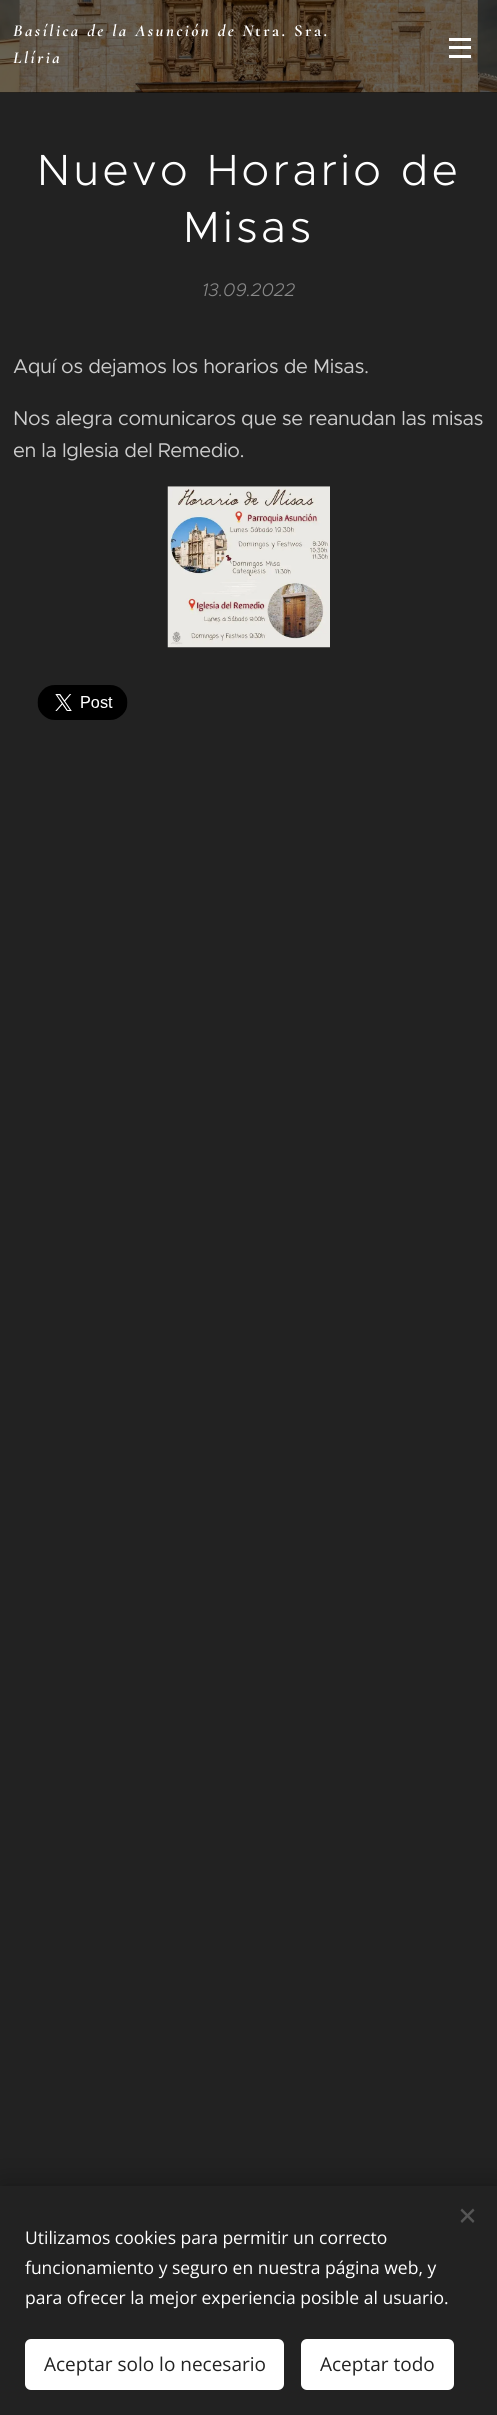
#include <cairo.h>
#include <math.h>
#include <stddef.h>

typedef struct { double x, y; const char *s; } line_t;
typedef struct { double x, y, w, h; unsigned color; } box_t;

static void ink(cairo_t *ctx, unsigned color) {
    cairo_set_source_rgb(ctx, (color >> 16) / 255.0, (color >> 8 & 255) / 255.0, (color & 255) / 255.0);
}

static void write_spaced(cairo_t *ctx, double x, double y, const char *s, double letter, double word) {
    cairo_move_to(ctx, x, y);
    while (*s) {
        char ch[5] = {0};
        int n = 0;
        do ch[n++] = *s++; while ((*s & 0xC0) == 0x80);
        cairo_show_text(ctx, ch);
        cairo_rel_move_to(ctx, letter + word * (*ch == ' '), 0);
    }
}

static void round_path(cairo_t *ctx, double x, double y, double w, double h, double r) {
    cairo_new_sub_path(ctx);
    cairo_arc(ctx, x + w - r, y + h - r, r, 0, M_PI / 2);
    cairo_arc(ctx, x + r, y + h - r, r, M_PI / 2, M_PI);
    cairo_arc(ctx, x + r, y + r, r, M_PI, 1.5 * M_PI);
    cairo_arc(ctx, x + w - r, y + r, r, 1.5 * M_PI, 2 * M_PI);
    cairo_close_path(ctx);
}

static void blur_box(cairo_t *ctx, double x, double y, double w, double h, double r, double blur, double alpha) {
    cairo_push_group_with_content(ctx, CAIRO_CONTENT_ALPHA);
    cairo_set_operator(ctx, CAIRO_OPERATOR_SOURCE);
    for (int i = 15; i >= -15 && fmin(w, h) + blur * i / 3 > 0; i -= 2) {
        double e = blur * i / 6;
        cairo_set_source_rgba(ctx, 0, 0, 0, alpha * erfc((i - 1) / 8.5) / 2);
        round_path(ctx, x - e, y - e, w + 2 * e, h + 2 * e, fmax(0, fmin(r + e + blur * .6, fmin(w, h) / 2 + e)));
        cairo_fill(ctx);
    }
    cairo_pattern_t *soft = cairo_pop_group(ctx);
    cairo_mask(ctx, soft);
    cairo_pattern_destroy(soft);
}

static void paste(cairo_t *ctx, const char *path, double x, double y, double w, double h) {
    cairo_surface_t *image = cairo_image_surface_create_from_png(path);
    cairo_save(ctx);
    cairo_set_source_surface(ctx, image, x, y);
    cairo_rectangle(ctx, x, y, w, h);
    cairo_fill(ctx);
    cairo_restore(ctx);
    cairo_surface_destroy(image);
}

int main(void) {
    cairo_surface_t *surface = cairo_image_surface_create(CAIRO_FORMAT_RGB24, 497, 2415);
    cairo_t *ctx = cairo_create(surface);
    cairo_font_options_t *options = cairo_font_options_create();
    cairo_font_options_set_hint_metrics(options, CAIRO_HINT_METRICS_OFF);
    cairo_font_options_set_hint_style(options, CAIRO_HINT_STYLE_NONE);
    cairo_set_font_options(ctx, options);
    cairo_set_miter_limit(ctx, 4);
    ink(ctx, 0x222222);
    cairo_paint(ctx);
    ink(ctx, 0x101010);
    cairo_rectangle(ctx, 0, 92, 497, 1);
    cairo_fill(ctx);
    paste(ctx, "media/1.png", 0, 0, 497, 93);
    cairo_select_font_face(ctx, "Cormorant", CAIRO_FONT_SLANT_ITALIC, CAIRO_FONT_WEIGHT_BOLD);
    cairo_set_font_size(ctx, 16.75);
    ink(ctx, 0xFFFFFF);
    write_spaced(ctx, 13, 36, "Basílica de la Asunción de N", 2.5, 0);
    cairo_select_font_face(ctx, "Cormorant", CAIRO_FONT_SLANT_NORMAL, CAIRO_FONT_WEIGHT_BOLD);
    write_spaced(ctx, 255, 36, "tra. Sra.", 2.5, 0);
    cairo_select_font_face(ctx, "Cormorant", CAIRO_FONT_SLANT_ITALIC, CAIRO_FONT_WEIGHT_BOLD);
    write_spaced(ctx, 13, 63, "Llíria", 2.5, 0);
    {
        static const box_t items[] = {
            {449, 46, 22, 3, 0xFFFFFF},
            {449, 38, 22, 3, 0xFFFFFF},
            {449, 55, 22, 3, 0xFFFFFF},
        };
        for (size_t i = 0; i < sizeof items / sizeof *items; i++) {
            ink(ctx, items[i].color);
            cairo_rectangle(ctx, items[i].x, items[i].y, items[i].w, items[i].h);
            cairo_fill(ctx);
        }
    }
    cairo_select_font_face(ctx, "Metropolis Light", CAIRO_FONT_SLANT_NORMAL, CAIRO_FONT_WEIGHT_NORMAL);
    cairo_set_font_size(ctx, 43.75);
    write_spaced(ctx, 37, 185, "Nuevo Horario de", 3.5, 0);
    write_spaced(ctx, 183, 242, "Misas", 3.5, 0);
    cairo_select_font_face(ctx, "Metropolis Light", CAIRO_FONT_SLANT_ITALIC, CAIRO_FONT_WEIGHT_NORMAL);
    cairo_set_font_size(ctx, 18.25);
    ink(ctx, 0x888888);
    cairo_move_to(ctx, 202, 296);
    cairo_show_text(ctx, "13.09.2022");
    cairo_select_font_face(ctx, "Metropolis", CAIRO_FONT_SLANT_NORMAL, CAIRO_FONT_WEIGHT_NORMAL);
    cairo_set_font_size(ctx, 20);
    ink(ctx, 0xCCCCCC);
    {
        static const line_t items[] = {
            {13, 373, "Aquí os dejamos los horarios de Misas."},
            {13, 425, "Nos alegra comunicaros que se reanudan las misas"},
            {13, 457, "en la Iglesia del Remedio."},
        };
        for (size_t i = 0; i < sizeof items / sizeof *items; i++) {
            write_spaced(ctx, items[i].x, items[i].y, items[i].s, -0.4, 0);
        }
    }
    paste(ctx, "media/2.png", 167, 486, 163, 162);
    paste(ctx, "media/3.png", 37, 685, 91, 35);
    ink(ctx, 0x000000);
    blur_box(ctx, 0, 2186, 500, 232, 0, 15.5, 0.33);
    ink(ctx, 0x222222);
    cairo_rectangle(ctx, 0, 2186, 497, 229);
    cairo_fill(ctx);
    ink(ctx, 0x555555);
    cairo_new_path(ctx);
    cairo_move_to(ctx, 460.5, 2221);
    cairo_line_to(ctx, 473, 2208.5);
    cairo_line_to(ctx, 474.5, 2210.5);
    cairo_line_to(ctx, 462, 2223);
    cairo_close_path(ctx);
    cairo_fill(ctx);
    cairo_new_path(ctx);
    cairo_move_to(ctx, 462, 2208.5);
    cairo_line_to(ctx, 474.5, 2221);
    cairo_line_to(ctx, 473, 2223);
    cairo_line_to(ctx, 460.5, 2210.5);
    cairo_close_path(ctx);
    cairo_fill(ctx);
    cairo_select_font_face(ctx, "Open Sans", CAIRO_FONT_SLANT_NORMAL, CAIRO_FONT_WEIGHT_NORMAL);
    cairo_set_font_size(ctx, 17.5);
    ink(ctx, 0xFFFFFF);
    {
        static const line_t items[] = {
            {25, 2244, "Utilizamos cookies para permitir un correcto"},
            {25, 2274, "funcionamiento y seguro en nuestra página web, y"},
            {25, 2304, "para ofrecer la mejor experiencia posible al usuario."},
        };
        for (size_t i = 0; i < sizeof items / sizeof *items; i++) {
            cairo_move_to(ctx, items[i].x, items[i].y);
            cairo_show_text(ctx, items[i].s);
        }
    }
    round_path(ctx, 25, 2339, 259, 51, 6);
    cairo_fill(ctx);
    cairo_set_font_size(ctx, 19);
    ink(ctx, 0x222222);
    cairo_move_to(ctx, 44, 2371);
    cairo_show_text(ctx, "Aceptar solo lo necesario");
    ink(ctx, 0xFFFFFF);
    round_path(ctx, 301, 2339, 153, 51, 6);
    cairo_fill(ctx);
    ink(ctx, 0x222222);
    cairo_move_to(ctx, 320, 2371);
    cairo_show_text(ctx, "Aceptar todo");
    cairo_surface_write_to_png(surface, "image.png");
    cairo_font_options_destroy(options);
    cairo_destroy(ctx);
    cairo_surface_destroy(surface);
    return 0;
}
